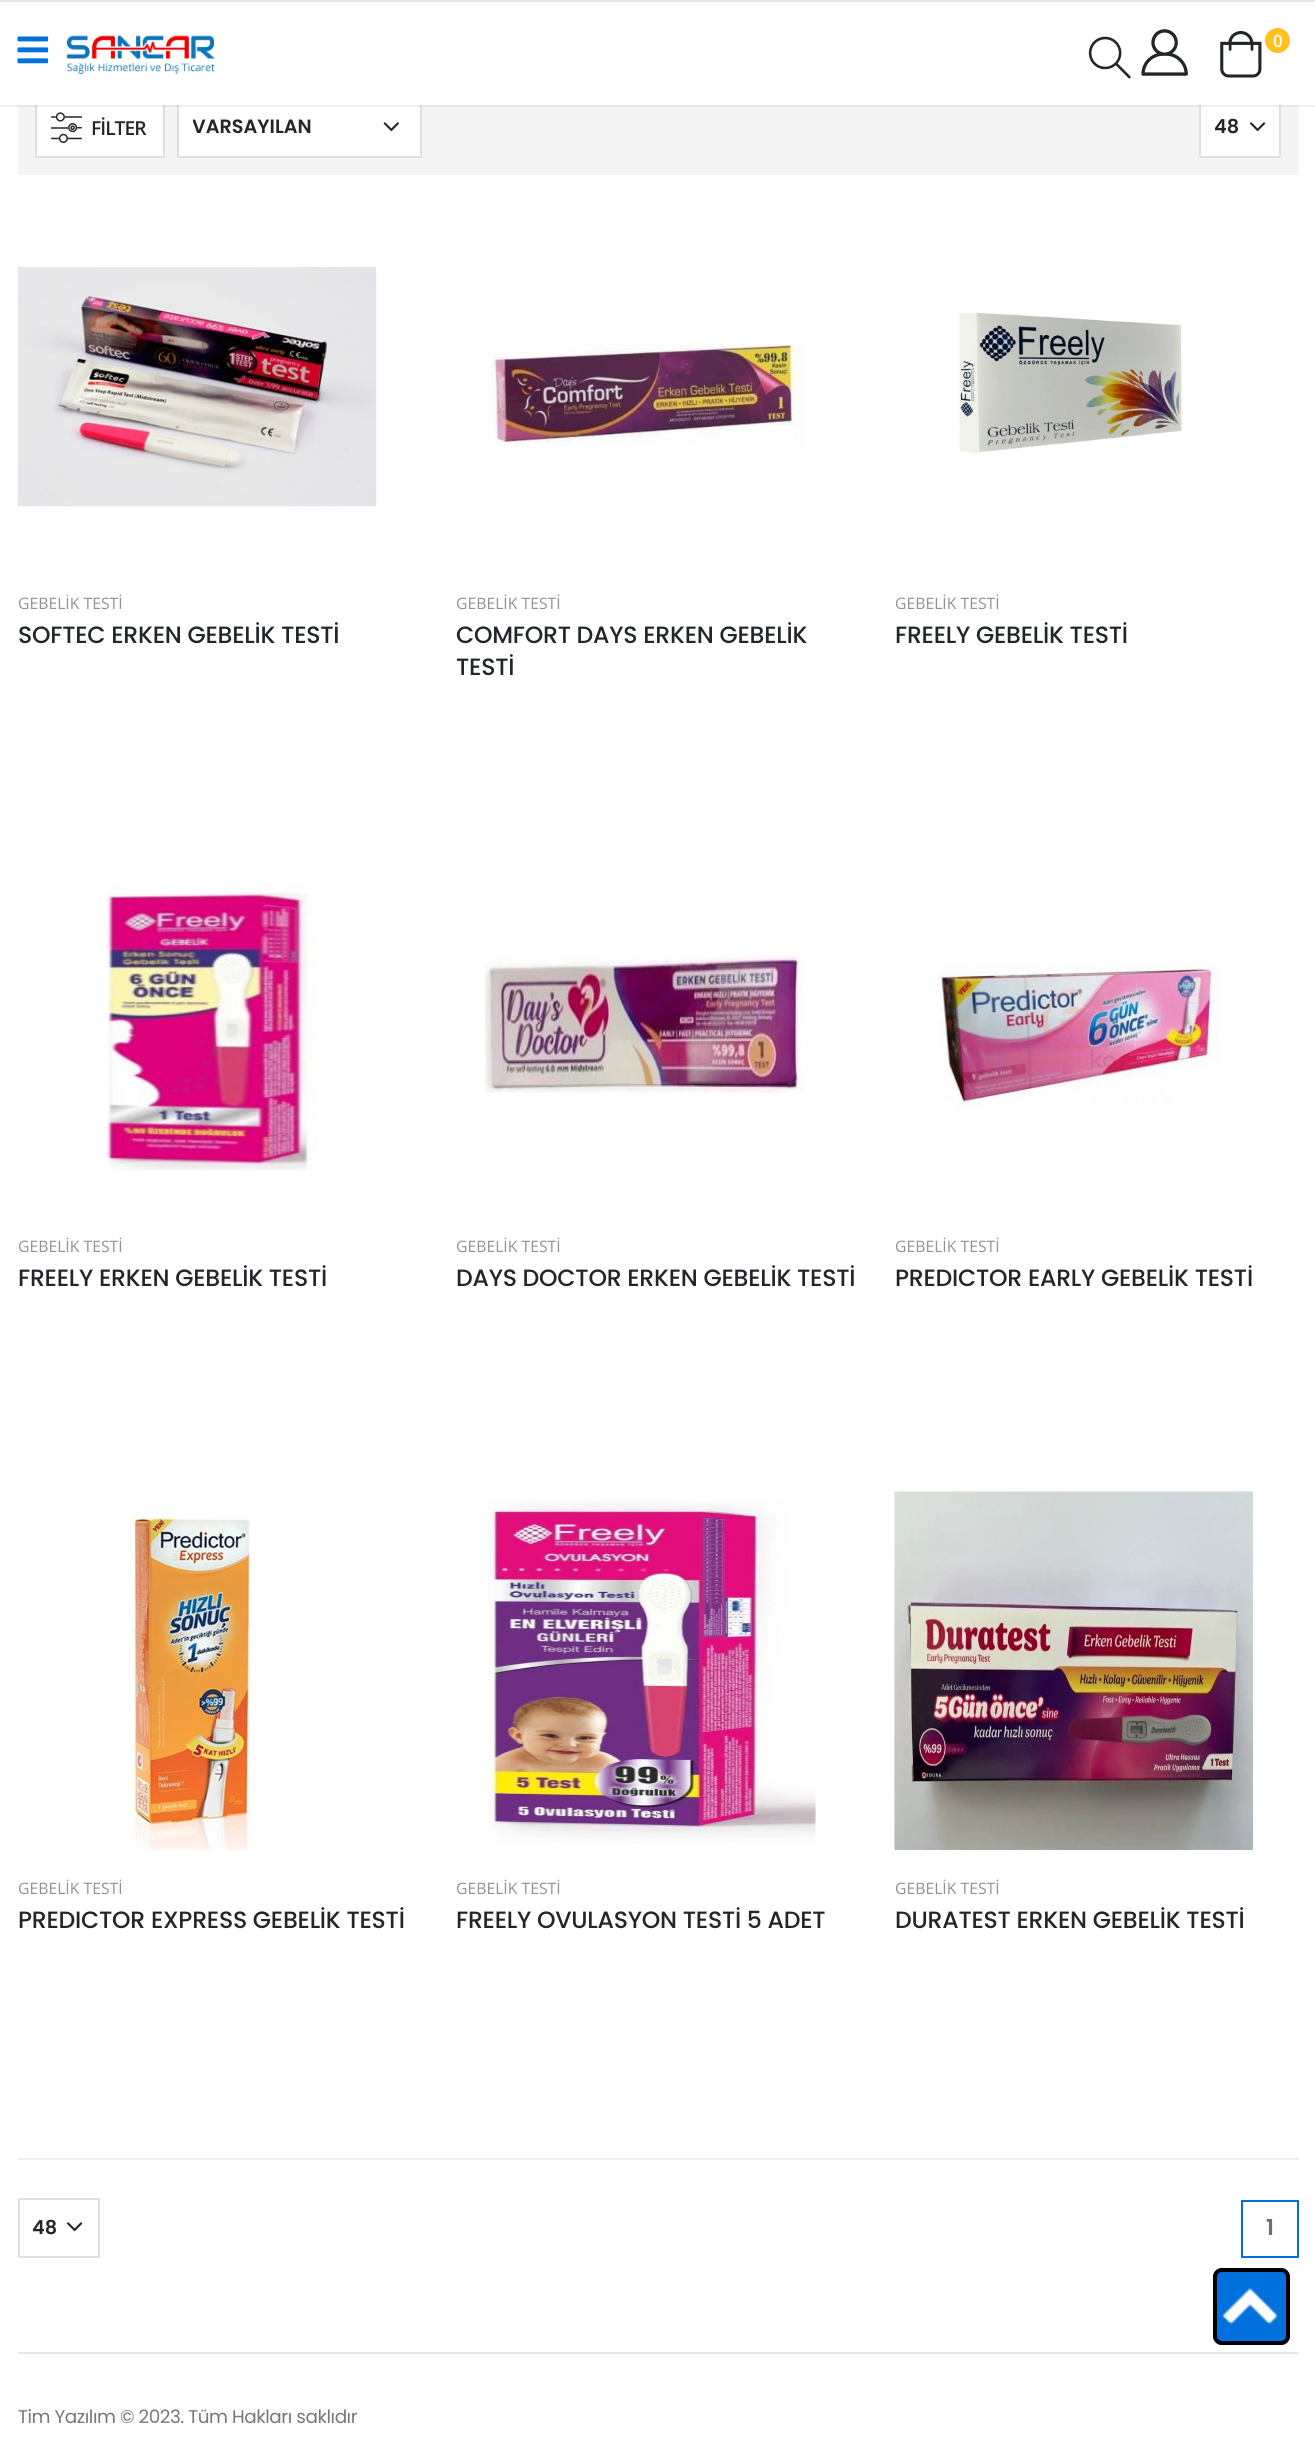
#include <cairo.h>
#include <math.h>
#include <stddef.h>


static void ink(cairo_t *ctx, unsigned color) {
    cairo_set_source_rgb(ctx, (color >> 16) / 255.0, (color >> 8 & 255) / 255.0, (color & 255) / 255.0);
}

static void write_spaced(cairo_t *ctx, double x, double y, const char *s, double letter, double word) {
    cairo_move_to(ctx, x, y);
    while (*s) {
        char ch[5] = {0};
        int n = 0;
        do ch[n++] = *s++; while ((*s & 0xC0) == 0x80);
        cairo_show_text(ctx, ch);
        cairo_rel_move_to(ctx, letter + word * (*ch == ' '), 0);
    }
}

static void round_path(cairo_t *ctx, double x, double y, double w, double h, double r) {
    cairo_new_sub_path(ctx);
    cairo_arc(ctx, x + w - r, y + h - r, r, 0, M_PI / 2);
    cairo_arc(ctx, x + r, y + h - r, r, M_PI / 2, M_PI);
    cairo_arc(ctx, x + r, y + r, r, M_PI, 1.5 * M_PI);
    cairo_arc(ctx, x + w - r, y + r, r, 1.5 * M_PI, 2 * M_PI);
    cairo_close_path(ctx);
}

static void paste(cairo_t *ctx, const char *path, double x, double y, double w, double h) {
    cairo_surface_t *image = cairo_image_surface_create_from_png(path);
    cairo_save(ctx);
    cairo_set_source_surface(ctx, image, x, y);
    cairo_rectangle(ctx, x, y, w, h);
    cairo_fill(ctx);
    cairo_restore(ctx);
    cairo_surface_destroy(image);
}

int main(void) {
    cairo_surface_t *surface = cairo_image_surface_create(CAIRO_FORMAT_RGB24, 1315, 2441);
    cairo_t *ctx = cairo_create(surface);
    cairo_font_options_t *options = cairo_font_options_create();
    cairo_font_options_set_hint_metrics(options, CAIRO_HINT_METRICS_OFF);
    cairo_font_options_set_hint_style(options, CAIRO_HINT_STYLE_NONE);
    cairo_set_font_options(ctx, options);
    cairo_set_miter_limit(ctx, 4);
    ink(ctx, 0xFFFFFF);
    cairo_paint(ctx);
    ink(ctx, 0xF4F4F4);
    cairo_rectangle(ctx, 18, 105, 1281, 70);
    cairo_fill(ctx);
    ink(ctx, 0xFFFFFF);
    cairo_rectangle(ctx, 37, 105, 126, 51);
    cairo_fill(ctx);
    cairo_rectangle(ctx, 36, 99, 128, 58);
    ink(ctx, 0xDFDFDF);
    cairo_stroke(ctx);
    ink(ctx, 0xFFFFFF);
    cairo_rectangle(ctx, 179, 105, 241, 51);
    cairo_fill(ctx);
    paste(ctx, "media/7.png", 383, 122, 16, 10);
    cairo_rectangle(ctx, 178, 99, 243, 58);
    ink(ctx, 0xDFDFDF);
    cairo_stroke(ctx);
    ink(ctx, 0xFFFFFF);
    cairo_rectangle(ctx, 1201, 105, 78, 51);
    cairo_fill(ctx);
    paste(ctx, "media/8.png", 1249, 122, 17, 10);
    cairo_rectangle(ctx, 1200, 99, 80, 58);
    ink(ctx, 0xDFDFDF);
    cairo_stroke(ctx);
    cairo_set_source_rgba(ctx, 0, 0, 0, 0.06);
    cairo_rectangle(ctx, 0, 105, 1315, 2);
    cairo_fill(ctx);
    ink(ctx, 0xFFFFFF);
    cairo_rectangle(ctx, 35, 98, 1246, 7);
    cairo_fill(ctx);
    ink(ctx, 0xE7E7E7);
    cairo_rectangle(ctx, 0, 0, 1315, 2);
    cairo_fill(ctx);
    paste(ctx, "media/1.png", 17, 36, 32, 28);
    paste(ctx, "media/2.png", 66, 35, 149, 39);
    paste(ctx, "media/3.png", 1088, 36, 43, 43);
    paste(ctx, "media/4.png", 1141, 29, 47, 47);
    paste(ctx, "media/5.png", 1220, 31, 42, 47);
    ink(ctx, 0xFFC220);
    cairo_arc(ctx, 1277.5, 40.5, 12.5, 0, 2 * M_PI);
    cairo_fill(ctx);
    cairo_select_font_face(ctx, "Open Sans SemiBold", CAIRO_FONT_SLANT_NORMAL, CAIRO_FONT_WEIGHT_NORMAL);
    cairo_set_font_size(ctx, 17);
    ink(ctx, 0xFFFFFF);
    cairo_move_to(ctx, 1273, 47);
    cairo_show_text(ctx, "0");
    paste(ctx, "media/6.png", 51, 112, 31, 31);
    cairo_set_font_size(ctx, 19.25);
    ink(ctx, 0x222529);
    write_spaced(ctx, 91, 135, "FİLTER", -1, 0);
    cairo_save(ctx);
    cairo_rectangle(ctx, 193, 112, 189, 30);
    cairo_clip(ctx);
    cairo_select_font_face(ctx, "Poppins SemiBold", CAIRO_FONT_SLANT_NORMAL, CAIRO_FONT_WEIGHT_NORMAL);
    cairo_move_to(ctx, 192, 133);
    cairo_show_text(ctx, "VARSAYILAN");
    cairo_restore(ctx);
    cairo_save(ctx);
    cairo_rectangle(ctx, 1215, 112, 26, 30);
    cairo_clip(ctx);
    cairo_select_font_face(ctx, "Poppins SemiBold", CAIRO_FONT_SLANT_NORMAL, CAIRO_FONT_WEIGHT_NORMAL);
    cairo_move_to(ctx, 1214, 133);
    cairo_show_text(ctx, "48");
    cairo_restore(ctx);
    paste(ctx, "media/9.png", 17, 267, 360, 240);
    cairo_select_font_face(ctx, "Open Sans", CAIRO_FONT_SLANT_NORMAL, CAIRO_FONT_WEIGHT_NORMAL);
    cairo_set_font_size(ctx, 15.75);
    ink(ctx, 0x929292);
    cairo_move_to(ctx, 18, 609);
    cairo_show_text(ctx, "GEBELİK TESTİ");
    cairo_select_font_face(ctx, "Poppins Medium", CAIRO_FONT_SLANT_NORMAL, CAIRO_FONT_WEIGHT_NORMAL);
    cairo_set_font_size(ctx, 23.6);
    ink(ctx, 0x222529);
    write_spaced(ctx, 18, 643, "SOFTEC ERKEN GEBELİK TESTİ", -0.25, 0);
    paste(ctx, "media/10.png", 488, 344, 317, 103);
    cairo_select_font_face(ctx, "Open Sans", CAIRO_FONT_SLANT_NORMAL, CAIRO_FONT_WEIGHT_NORMAL);
    cairo_set_font_size(ctx, 15.75);
    ink(ctx, 0x929292);
    cairo_move_to(ctx, 456, 609);
    cairo_show_text(ctx, "GEBELİK TESTİ");
    cairo_select_font_face(ctx, "Poppins Medium", CAIRO_FONT_SLANT_NORMAL, CAIRO_FONT_WEIGHT_NORMAL);
    cairo_set_font_size(ctx, 23.6);
    ink(ctx, 0x222529);
    write_spaced(ctx, 456, 643, "COMFORT DAYS ERKEN GEBELİK", -0.25, 0);
    write_spaced(ctx, 456, 675, "TESTİ", -0.25, 0);
    paste(ctx, "media/11.png", 957, 312, 225, 142);
    cairo_select_font_face(ctx, "Open Sans", CAIRO_FONT_SLANT_NORMAL, CAIRO_FONT_WEIGHT_NORMAL);
    cairo_set_font_size(ctx, 15.75);
    ink(ctx, 0x929292);
    cairo_move_to(ctx, 895, 609);
    cairo_show_text(ctx, "GEBELİK TESTİ");
    cairo_select_font_face(ctx, "Poppins Medium", CAIRO_FONT_SLANT_NORMAL, CAIRO_FONT_WEIGHT_NORMAL);
    cairo_set_font_size(ctx, 23.6);
    ink(ctx, 0x222529);
    write_spaced(ctx, 895, 643, "FREELY GEBELİK TESTİ", -0.25, 0);
    paste(ctx, "media/12.png", 106, 883, 211, 288);
    cairo_select_font_face(ctx, "Open Sans", CAIRO_FONT_SLANT_NORMAL, CAIRO_FONT_WEIGHT_NORMAL);
    cairo_set_font_size(ctx, 15.75);
    ink(ctx, 0x929292);
    cairo_move_to(ctx, 18, 1252);
    cairo_show_text(ctx, "GEBELİK TESTİ");
    cairo_select_font_face(ctx, "Poppins Medium", CAIRO_FONT_SLANT_NORMAL, CAIRO_FONT_WEIGHT_NORMAL);
    cairo_set_font_size(ctx, 23.6);
    ink(ctx, 0x222529);
    write_spaced(ctx, 18, 1286, "FREELY ERKEN GEBELİK TESTİ", -0.25, 0);
    paste(ctx, "media/13.png", 485, 955, 319, 139);
    cairo_select_font_face(ctx, "Open Sans", CAIRO_FONT_SLANT_NORMAL, CAIRO_FONT_WEIGHT_NORMAL);
    cairo_set_font_size(ctx, 15.75);
    ink(ctx, 0x929292);
    cairo_move_to(ctx, 456, 1252);
    cairo_show_text(ctx, "GEBELİK TESTİ");
    cairo_select_font_face(ctx, "Poppins Medium", CAIRO_FONT_SLANT_NORMAL, CAIRO_FONT_WEIGHT_NORMAL);
    cairo_set_font_size(ctx, 23.6);
    ink(ctx, 0x222529);
    write_spaced(ctx, 456, 1286, "DAYS DOCTOR ERKEN GEBELİK TESTİ", -0.25, 0);
    paste(ctx, "media/14.png", 937, 964, 283, 146);
    cairo_select_font_face(ctx, "Open Sans", CAIRO_FONT_SLANT_NORMAL, CAIRO_FONT_WEIGHT_NORMAL);
    cairo_set_font_size(ctx, 15.75);
    ink(ctx, 0x929292);
    cairo_move_to(ctx, 895, 1252);
    cairo_show_text(ctx, "GEBELİK TESTİ");
    cairo_select_font_face(ctx, "Poppins Medium", CAIRO_FONT_SLANT_NORMAL, CAIRO_FONT_WEIGHT_NORMAL);
    cairo_set_font_size(ctx, 23.6);
    ink(ctx, 0x222529);
    write_spaced(ctx, 895, 1286, "PREDICTOR EARLY GEBELİK TESTİ", -0.25, 0);
    paste(ctx, "media/15.png", 131, 1516, 126, 334);
    cairo_select_font_face(ctx, "Open Sans", CAIRO_FONT_SLANT_NORMAL, CAIRO_FONT_WEIGHT_NORMAL);
    cairo_set_font_size(ctx, 15.75);
    ink(ctx, 0x929292);
    cairo_move_to(ctx, 18, 1894);
    cairo_show_text(ctx, "GEBELİK TESTİ");
    cairo_select_font_face(ctx, "Poppins Medium", CAIRO_FONT_SLANT_NORMAL, CAIRO_FONT_WEIGHT_NORMAL);
    cairo_set_font_size(ctx, 23.6);
    ink(ctx, 0x222529);
    write_spaced(ctx, 18, 1928, "PREDICTOR EXPRESS GEBELİK TESTİ", -0.25, 0);
    paste(ctx, "media/16.png", 488, 1500, 328, 344);
    cairo_select_font_face(ctx, "Open Sans", CAIRO_FONT_SLANT_NORMAL, CAIRO_FONT_WEIGHT_NORMAL);
    cairo_set_font_size(ctx, 15.75);
    ink(ctx, 0x929292);
    cairo_move_to(ctx, 456, 1894);
    cairo_show_text(ctx, "GEBELİK TESTİ");
    cairo_select_font_face(ctx, "Poppins Medium", CAIRO_FONT_SLANT_NORMAL, CAIRO_FONT_WEIGHT_NORMAL);
    cairo_set_font_size(ctx, 23.6);
    ink(ctx, 0x222529);
    write_spaced(ctx, 456, 1928, "FREELY OVULASYON TESTİ 5 ADET", -0.25, 0);
    paste(ctx, "media/17.png", 894, 1491, 359, 359);
    cairo_select_font_face(ctx, "Open Sans", CAIRO_FONT_SLANT_NORMAL, CAIRO_FONT_WEIGHT_NORMAL);
    cairo_set_font_size(ctx, 15.75);
    ink(ctx, 0x929292);
    cairo_move_to(ctx, 895, 1894);
    cairo_show_text(ctx, "GEBELİK TESTİ");
    cairo_select_font_face(ctx, "Poppins Medium", CAIRO_FONT_SLANT_NORMAL, CAIRO_FONT_WEIGHT_NORMAL);
    cairo_set_font_size(ctx, 23.6);
    ink(ctx, 0x222529);
    write_spaced(ctx, 895, 1928, "DURATEST ERKEN GEBELİK TESTİ", -0.25, 0);
    ink(ctx, 0xEFEFEF);
    cairo_rectangle(ctx, 18, 2158, 1281, 2);
    cairo_fill(ctx);
    paste(ctx, "media/8.png", 66, 2222, 17, 10);
    cairo_rectangle(ctx, 19, 2199, 80, 58);
    ink(ctx, 0xDFDFDF);
    cairo_stroke(ctx);
    cairo_select_font_face(ctx, "Poppins SemiBold", CAIRO_FONT_SLANT_NORMAL, CAIRO_FONT_WEIGHT_NORMAL);
    cairo_set_font_size(ctx, 19.25);
    ink(ctx, 0x222529);
    cairo_move_to(ctx, 32, 2234);
    cairo_show_text(ctx, "48");
    cairo_rectangle(ctx, 1242, 2201, 56, 56);
    ink(ctx, 0x0071DC);
    cairo_stroke(ctx);
    cairo_set_font_size(ctx, 22);
    ink(ctx, 0x706F6C);
    cairo_move_to(ctx, 1266, 2235);
    cairo_show_text(ctx, "1");
    ink(ctx, 0x0071DC);
    round_path(ctx, 1213, 2268, 77, 77, 9);
    cairo_fill(ctx);
    paste(ctx, "media/18.png", 1222, 2288, 56, 37);
    round_path(ctx, 1215, 2270, 73, 73, 7);
    ink(ctx, 0x000000);
    cairo_set_line_width(ctx, 4);
    cairo_stroke(ctx);
    ink(ctx, 0xE7E7E7);
    cairo_rectangle(ctx, 18, 2352, 1281, 2);
    cairo_fill(ctx);
    cairo_select_font_face(ctx, "Poppins", CAIRO_FONT_SLANT_NORMAL, CAIRO_FONT_WEIGHT_NORMAL);
    cairo_set_font_size(ctx, 18.4);
    ink(ctx, 0x777777);
    write_spaced(ctx, 18, 2423, "Tim Yazılım © 2023. Tüm Hakları saklıdır", -0.45, 0);
    cairo_surface_write_to_png(surface, "image.png");
    cairo_font_options_destroy(options);
    cairo_destroy(ctx);
    cairo_surface_destroy(surface);
    return 0;
}
